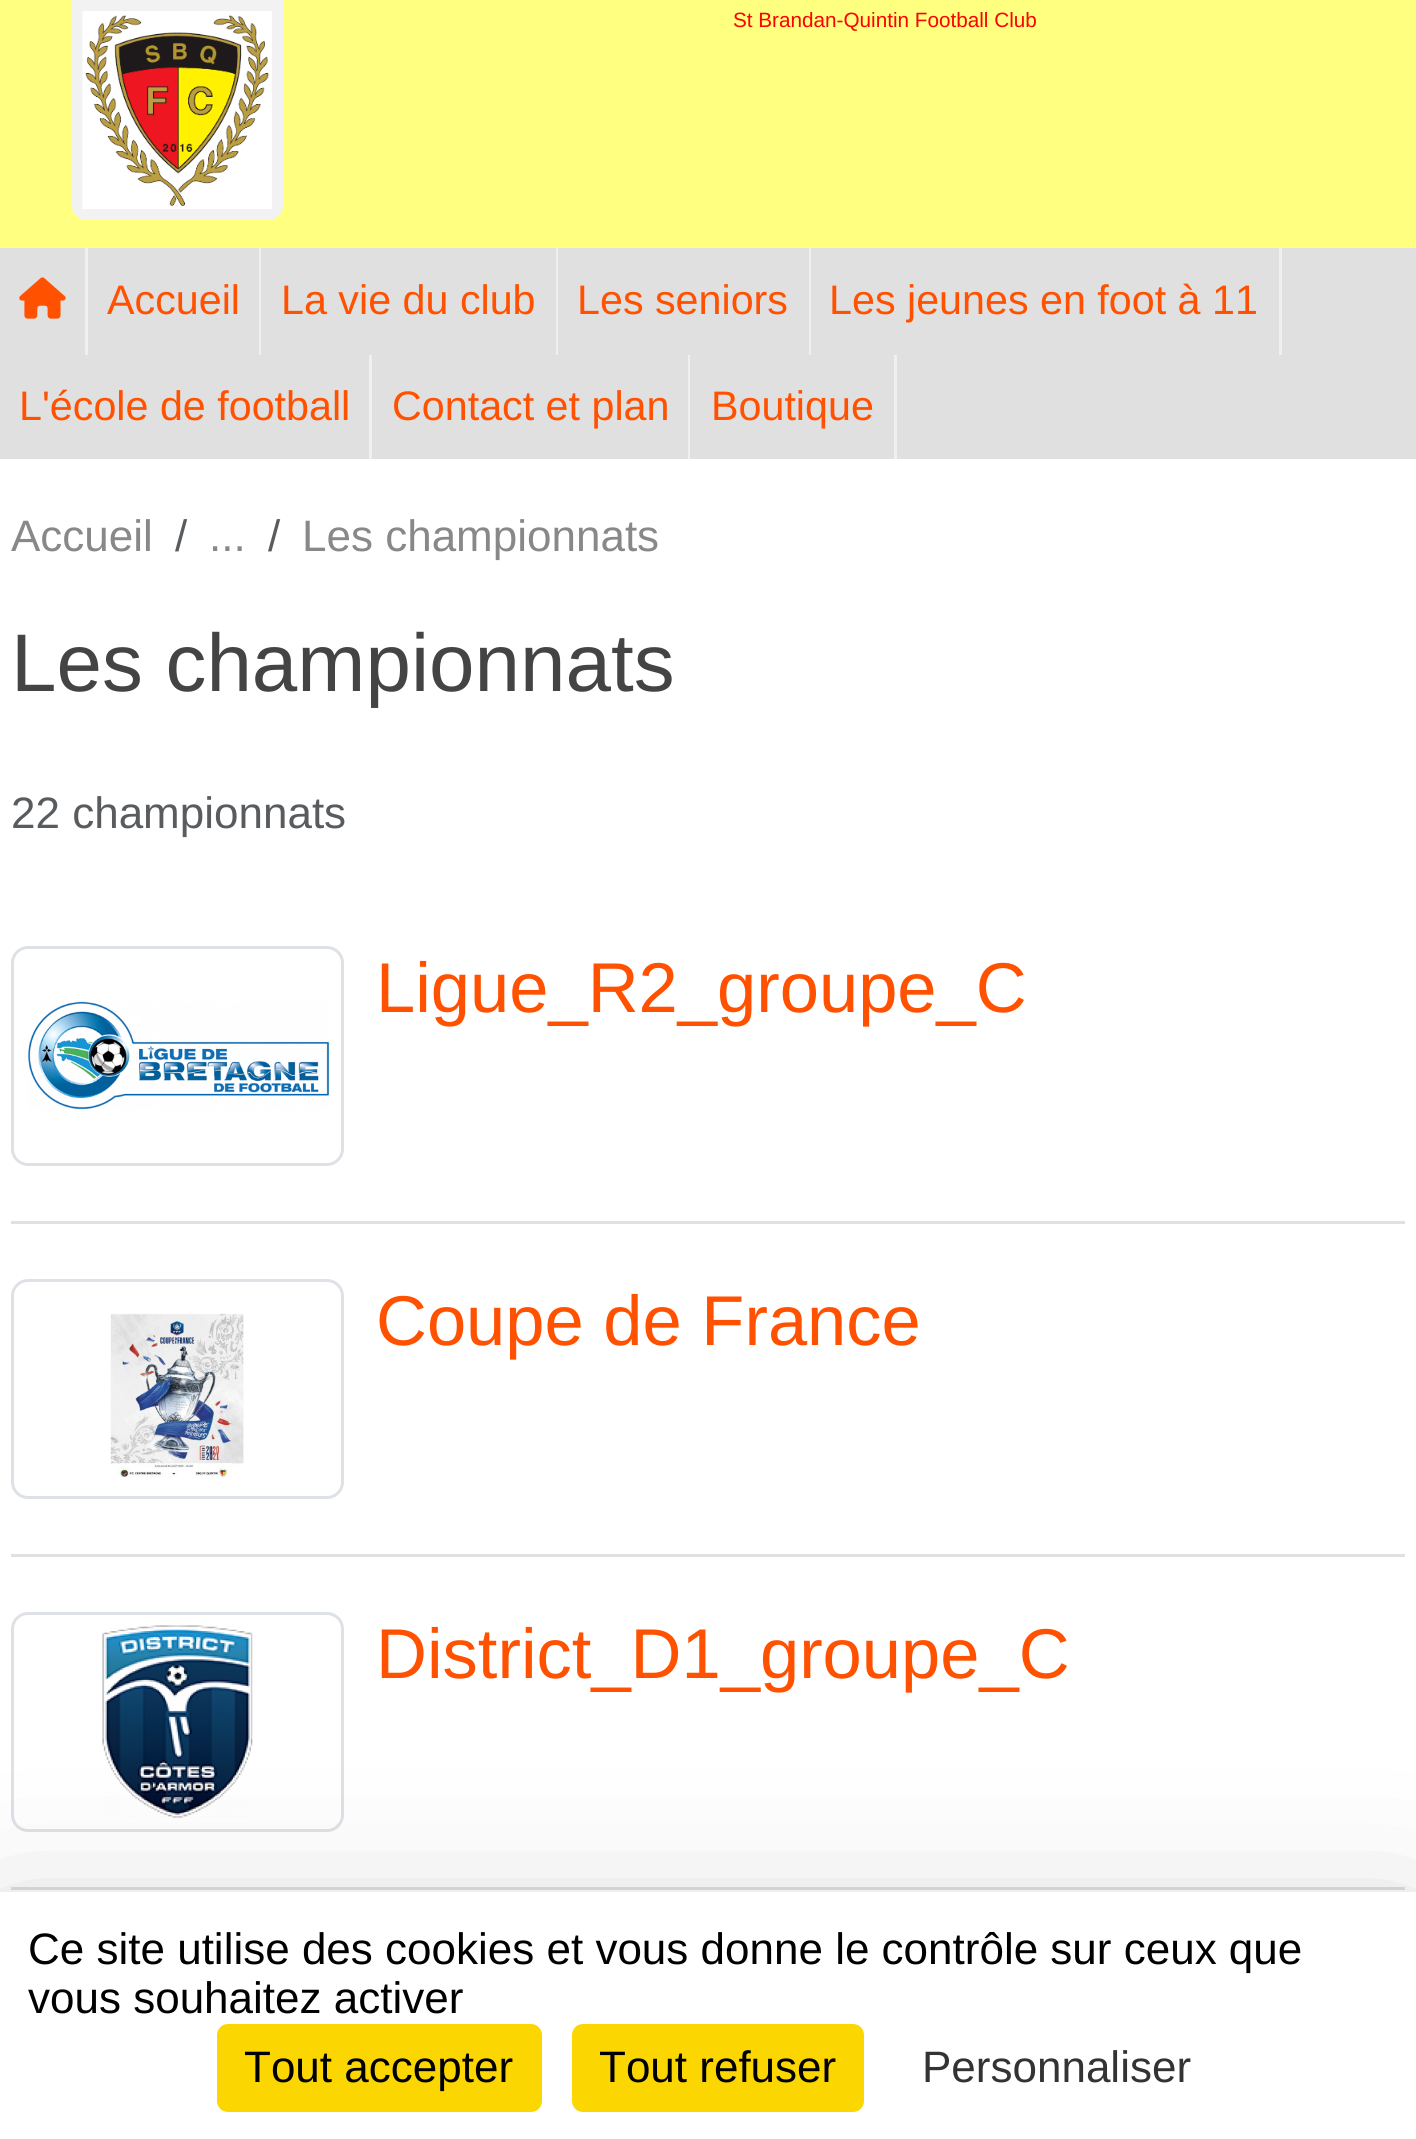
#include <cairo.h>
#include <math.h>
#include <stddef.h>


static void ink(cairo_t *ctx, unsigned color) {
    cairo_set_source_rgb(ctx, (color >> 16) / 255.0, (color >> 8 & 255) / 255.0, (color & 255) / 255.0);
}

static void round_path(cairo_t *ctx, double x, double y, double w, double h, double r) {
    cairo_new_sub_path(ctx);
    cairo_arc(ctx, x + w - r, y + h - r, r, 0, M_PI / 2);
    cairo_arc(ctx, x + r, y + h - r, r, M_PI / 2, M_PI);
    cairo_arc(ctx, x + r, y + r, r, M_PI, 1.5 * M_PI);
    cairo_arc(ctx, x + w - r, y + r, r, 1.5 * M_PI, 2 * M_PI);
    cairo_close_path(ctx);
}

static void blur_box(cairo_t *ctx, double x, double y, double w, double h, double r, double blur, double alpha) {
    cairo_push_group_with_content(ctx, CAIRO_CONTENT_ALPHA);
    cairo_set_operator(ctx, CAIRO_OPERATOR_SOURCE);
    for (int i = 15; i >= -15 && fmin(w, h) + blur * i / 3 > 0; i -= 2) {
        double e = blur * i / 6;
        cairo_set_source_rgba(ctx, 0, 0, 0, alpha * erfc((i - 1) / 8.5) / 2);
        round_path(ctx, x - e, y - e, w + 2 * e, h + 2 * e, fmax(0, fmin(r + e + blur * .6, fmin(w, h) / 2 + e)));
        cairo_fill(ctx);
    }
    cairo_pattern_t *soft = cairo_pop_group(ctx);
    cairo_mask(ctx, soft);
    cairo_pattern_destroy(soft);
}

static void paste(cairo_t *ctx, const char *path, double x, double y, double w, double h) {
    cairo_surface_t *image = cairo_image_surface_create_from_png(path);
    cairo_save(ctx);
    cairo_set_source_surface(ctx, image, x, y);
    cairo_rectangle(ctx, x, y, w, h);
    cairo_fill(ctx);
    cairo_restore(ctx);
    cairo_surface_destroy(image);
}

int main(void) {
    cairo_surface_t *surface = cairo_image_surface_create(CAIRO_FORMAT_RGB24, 1416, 2139);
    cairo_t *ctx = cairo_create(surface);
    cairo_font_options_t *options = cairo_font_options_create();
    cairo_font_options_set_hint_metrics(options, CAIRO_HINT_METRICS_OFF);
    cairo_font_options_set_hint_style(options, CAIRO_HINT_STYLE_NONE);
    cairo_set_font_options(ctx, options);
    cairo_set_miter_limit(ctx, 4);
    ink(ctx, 0xFFFFFF);
    cairo_paint(ctx);
    ink(ctx, 0xFFFF80);
    cairo_rectangle(ctx, 0, 0, 1416, 248);
    cairo_fill(ctx);
    ink(ctx, 0xF2F2F2);
    cairo_new_path(ctx);
    cairo_move_to(ctx, 72, 0);
    cairo_line_to(ctx, 283, 0);
    cairo_line_to(ctx, 283, 206);
    cairo_curve_to(ctx, 283, 213.5, 276.5, 220, 269, 220);
    cairo_line_to(ctx, 86, 220);
    cairo_curve_to(ctx, 78.5, 220, 72, 213.5, 72, 206);
    cairo_close_path(ctx);
    cairo_fill(ctx);
    paste(ctx, "media/1.png", 82, 11, 190, 198);
    cairo_select_font_face(ctx, "Liberation Sans", CAIRO_FONT_SLANT_NORMAL, CAIRO_FONT_WEIGHT_NORMAL);
    cairo_set_font_size(ctx, 20.7);
    ink(ctx, 0xFF0000);
    cairo_move_to(ctx, 733, 27);
    cairo_show_text(ctx, "St Brandan-Quintin Football Club");
    ink(ctx, 0xE0E0E0);
    cairo_rectangle(ctx, 0, 248, 1416, 211);
    cairo_fill(ctx);
    ink(ctx, 0xF0F0F0);
    cairo_rectangle(ctx, 85, 248, 3, 107);
    cairo_fill(ctx);
    paste(ctx, "media/2.png", 19, 277, 47, 42);
    cairo_rectangle(ctx, 259, 248, 2, 107);
    cairo_fill(ctx);
    cairo_set_font_size(ctx, 41.25);
    ink(ctx, 0xFF5100);
    cairo_move_to(ctx, 107, 314);
    cairo_show_text(ctx, "Accueil");
    ink(ctx, 0xF0F0F0);
    cairo_rectangle(ctx, 556, 248, 2, 107);
    cairo_fill(ctx);
    ink(ctx, 0xFF5100);
    cairo_move_to(ctx, 281, 314);
    cairo_show_text(ctx, "La vie du club");
    ink(ctx, 0xF0F0F0);
    cairo_rectangle(ctx, 809, 248, 2, 107);
    cairo_fill(ctx);
    ink(ctx, 0xFF5100);
    cairo_move_to(ctx, 577, 314);
    cairo_show_text(ctx, "Les seniors");
    ink(ctx, 0xF0F0F0);
    cairo_rectangle(ctx, 1279, 248, 3, 107);
    cairo_fill(ctx);
    ink(ctx, 0xFF5100);
    cairo_move_to(ctx, 829, 314);
    cairo_show_text(ctx, "Les jeunes en foot à 11");
    ink(ctx, 0xF0F0F0);
    cairo_rectangle(ctx, 369, 355, 3, 104);
    cairo_fill(ctx);
    ink(ctx, 0xFF5100);
    cairo_move_to(ctx, 19, 420);
    cairo_show_text(ctx, "L'école de football");
    ink(ctx, 0xF0F0F0);
    cairo_rectangle(ctx, 688, 355, 2, 104);
    cairo_fill(ctx);
    ink(ctx, 0xFF5100);
    cairo_move_to(ctx, 392, 420);
    cairo_show_text(ctx, "Contact et plan");
    ink(ctx, 0xF0F0F0);
    cairo_rectangle(ctx, 894, 355, 3, 104);
    cairo_fill(ctx);
    ink(ctx, 0xFF5100);
    cairo_move_to(ctx, 711, 420);
    cairo_show_text(ctx, "Boutique");
    cairo_set_font_size(ctx, 44);
    ink(ctx, 0x888888);
    cairo_move_to(ctx, 11, 551);
    cairo_show_text(ctx, "Accueil");
    ink(ctx, 0x595C5F);
    cairo_move_to(ctx, 175, 551);
    cairo_show_text(ctx, "/");
    ink(ctx, 0x888888);
    cairo_move_to(ctx, 209, 551);
    cairo_show_text(ctx, "...");
    ink(ctx, 0x595C5F);
    cairo_move_to(ctx, 268, 551);
    cairo_show_text(ctx, "/");
    ink(ctx, 0x888888);
    cairo_move_to(ctx, 302, 551);
    cairo_show_text(ctx, "Les championnats");
    cairo_set_font_size(ctx, 81.75);
    ink(ctx, 0x444444);
    cairo_move_to(ctx, 11, 691);
    cairo_show_text(ctx, "Les championnats");
    cairo_set_font_size(ctx, 44);
    ink(ctx, 0x595C5F);
    cairo_move_to(ctx, 11, 828);
    cairo_show_text(ctx, "22 championnats");
    ink(ctx, 0xE1E1E1);
    cairo_rectangle(ctx, 11, 1221, 1394, 3);
    cairo_fill(ctx);
    round_path(ctx, 12.5, 947.5, 330, 217, 15.5);
    ink(ctx, 0xDEE2E6);
    cairo_set_line_width(ctx, 3);
    cairo_stroke(ctx);
    paste(ctx, "media/3.png", 27, 1001, 303, 109);
    cairo_set_font_size(ctx, 70.5);
    ink(ctx, 0xFF5100);
    cairo_move_to(ctx, 376, 1012);
    cairo_show_text(ctx, "Ligue_R2_groupe_C");
    ink(ctx, 0xE1E1E1);
    cairo_rectangle(ctx, 11, 1554, 1394, 3);
    cairo_fill(ctx);
    round_path(ctx, 12.5, 1280.5, 330, 217, 15.5);
    ink(ctx, 0xDEE2E6);
    cairo_stroke(ctx);
    paste(ctx, "media/4.png", 110, 1313, 134, 165);
    ink(ctx, 0xFF5100);
    cairo_move_to(ctx, 376, 1345);
    cairo_show_text(ctx, "Coupe de France");
    ink(ctx, 0xE1E1E1);
    cairo_rectangle(ctx, 11, 1887, 1394, 3);
    cairo_fill(ctx);
    round_path(ctx, 12.5, 1613.5, 330, 217, 15.5);
    ink(ctx, 0xDEE2E6);
    cairo_stroke(ctx);
    paste(ctx, "media/5.png", 102, 1625, 151, 193);
    ink(ctx, 0xFF5100);
    cairo_move_to(ctx, 376, 1678);
    cairo_show_text(ctx, "District_D1_groupe_C");
    ink(ctx, 0x000000);
    blur_box(ctx, 0, 1947, 1416, 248, 0, 82.5, 0.25);
    ink(ctx, 0xFFFFFF);
    cairo_rectangle(ctx, 0, 1892, 1416, 247);
    cairo_fill(ctx);
    cairo_set_font_size(ctx, 44);
    ink(ctx, 0x000000);
    cairo_move_to(ctx, 28, 1964);
    cairo_show_text(ctx, "Ce site utilise des cookies et vous donne le contrôle sur ceux que");
    cairo_move_to(ctx, 28, 2013);
    cairo_show_text(ctx, "vous souhaitez activer");
    ink(ctx, 0xFBD600);
    round_path(ctx, 217, 2024, 325, 88, 11);
    cairo_fill(ctx);
    ink(ctx, 0x000000);
    cairo_move_to(ctx, 244, 2082);
    cairo_show_text(ctx, "Tout accepter");
    ink(ctx, 0xFBD600);
    round_path(ctx, 572, 2024, 292, 88, 11);
    cairo_fill(ctx);
    ink(ctx, 0x000000);
    cairo_move_to(ctx, 599, 2082);
    cairo_show_text(ctx, "Tout refuser");
    ink(ctx, 0x333333);
    cairo_move_to(ctx, 922, 2082);
    cairo_show_text(ctx, "Personnaliser");
    cairo_surface_write_to_png(surface, "image.png");
    cairo_font_options_destroy(options);
    cairo_destroy(ctx);
    cairo_surface_destroy(surface);
    return 0;
}
